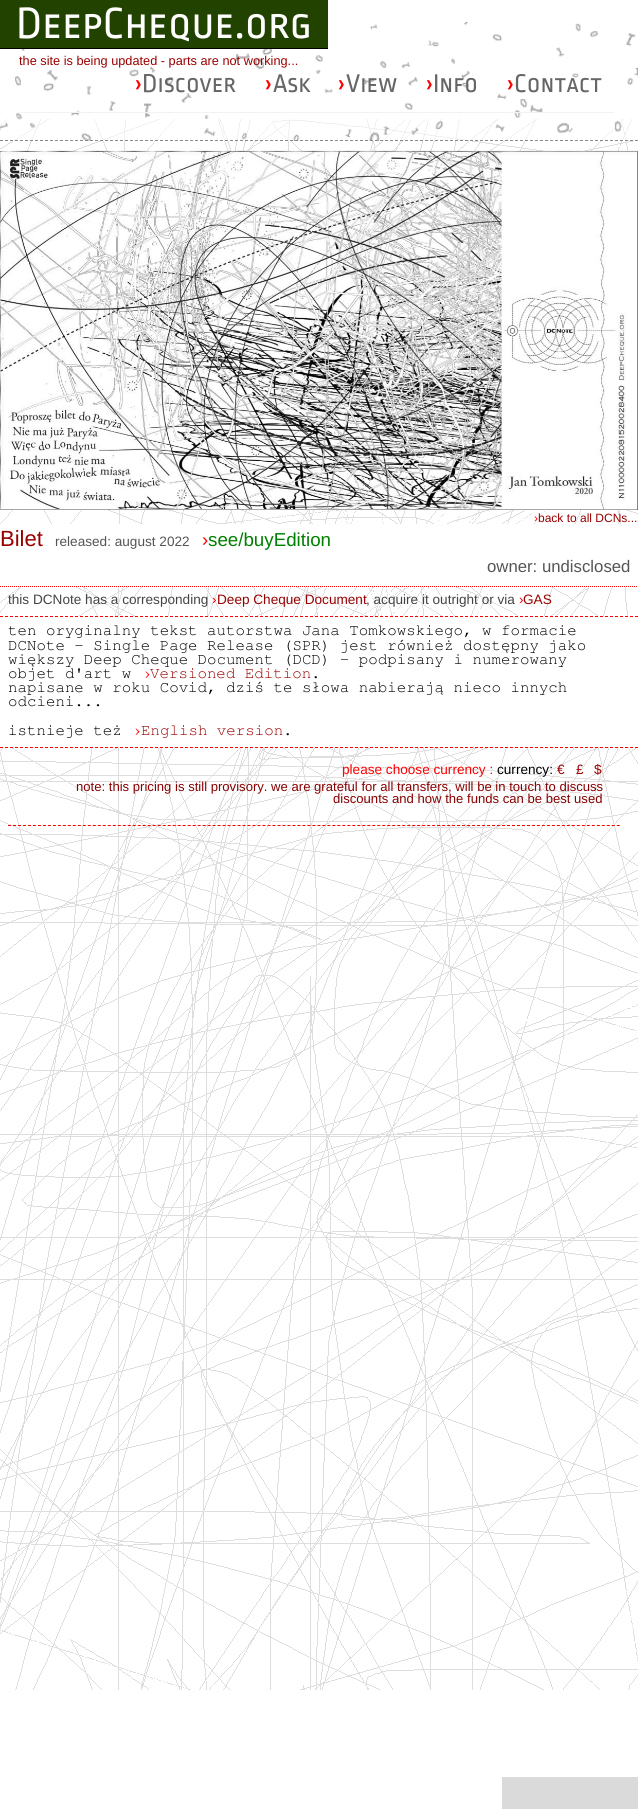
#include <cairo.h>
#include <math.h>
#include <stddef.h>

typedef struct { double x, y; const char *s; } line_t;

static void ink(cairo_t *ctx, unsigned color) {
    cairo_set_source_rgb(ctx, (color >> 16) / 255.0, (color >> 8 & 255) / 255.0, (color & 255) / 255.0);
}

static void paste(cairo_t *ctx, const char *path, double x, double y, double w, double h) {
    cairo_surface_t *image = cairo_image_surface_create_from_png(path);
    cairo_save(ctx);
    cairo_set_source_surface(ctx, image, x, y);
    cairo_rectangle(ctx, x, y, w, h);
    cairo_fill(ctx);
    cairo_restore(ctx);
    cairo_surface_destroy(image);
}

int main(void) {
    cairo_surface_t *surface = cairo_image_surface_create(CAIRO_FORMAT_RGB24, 638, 1809);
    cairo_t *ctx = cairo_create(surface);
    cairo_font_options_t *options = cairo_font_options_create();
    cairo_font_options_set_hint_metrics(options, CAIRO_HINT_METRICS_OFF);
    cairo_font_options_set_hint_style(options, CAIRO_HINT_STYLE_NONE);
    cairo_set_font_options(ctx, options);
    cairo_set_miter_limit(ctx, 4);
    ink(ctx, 0xFFFFFF);
    cairo_paint(ctx);
    paste(ctx, "media/1.png", 0, 119, 638, 1571);
    cairo_set_source_rgba(ctx, 1, 1, 1, 0.55);
    cairo_rectangle(ctx, 0, 119, 638, 22);
    cairo_fill(ctx);
    paste(ctx, "media/2.png", 0, 22, 638, 119);
    cairo_new_path(ctx);
    cairo_move_to(ctx, 0, 140.5);
    cairo_line_to(ctx, 638, 140.5);
    ink(ctx, 0x888888);
    cairo_set_line_width(ctx, 1);
    cairo_set_dash(ctx, (double[]){3, 2}, 2, 0);
    cairo_stroke(ctx);
    ink(ctx, 0x224300);
    cairo_rectangle(ctx, 0, 0, 328, 48);
    cairo_fill(ctx);
    ink(ctx, 0x000000);
    cairo_rectangle(ctx, 0, 48, 328, 1);
    cairo_fill(ctx);
    cairo_select_font_face(ctx, "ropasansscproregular", CAIRO_FONT_SLANT_NORMAL, CAIRO_FONT_WEIGHT_NORMAL);
    cairo_set_font_size(ctx, 46);
    ink(ctx, 0xFFFFFF);
    cairo_move_to(ctx, 16, 38);
    cairo_show_text(ctx, "DeepCheque.org");
    ink(ctx, 0xF2F2F2);
    cairo_rectangle(ctx, 20, 112, 594, 1);
    cairo_fill(ctx);
    cairo_set_font_size(ctx, 27);
    ink(ctx, 0xFF0000);
    cairo_move_to(ctx, 134, 92);
    cairo_show_text(ctx, "›");
    ink(ctx, 0x666666);
    cairo_move_to(ctx, 142, 92);
    cairo_show_text(ctx, "Discover");
    ink(ctx, 0xFF0000);
    cairo_move_to(ctx, 264, 92);
    cairo_show_text(ctx, "›");
    ink(ctx, 0x666666);
    cairo_move_to(ctx, 273, 92);
    cairo_show_text(ctx, "Ask");
    ink(ctx, 0xFF0000);
    cairo_move_to(ctx, 337, 92);
    cairo_show_text(ctx, "›");
    ink(ctx, 0x666666);
    cairo_move_to(ctx, 346, 92);
    cairo_show_text(ctx, "View");
    ink(ctx, 0xFF0000);
    cairo_move_to(ctx, 425, 92);
    cairo_show_text(ctx, "›");
    ink(ctx, 0x666666);
    cairo_move_to(ctx, 433, 92);
    cairo_show_text(ctx, "Info");
    ink(ctx, 0xFF0000);
    cairo_move_to(ctx, 506, 92);
    cairo_show_text(ctx, "›");
    ink(ctx, 0x666666);
    cairo_move_to(ctx, 514, 92);
    cairo_show_text(ctx, "Contact");
    cairo_select_font_face(ctx, "Liberation Sans", CAIRO_FONT_SLANT_NORMAL, CAIRO_FONT_WEIGHT_NORMAL);
    cairo_set_font_size(ctx, 12.75);
    ink(ctx, 0x990000);
    cairo_move_to(ctx, 19, 65);
    cairo_show_text(ctx, "the site is being updated - parts are not working...");
    paste(ctx, "media/3.png", 0, 150, 638, 360);
    cairo_set_font_size(ctx, 12);
    ink(ctx, 0xFF0000);
    cairo_move_to(ctx, 534, 522);
    cairo_show_text(ctx, "›");
    ink(ctx, 0x990000);
    cairo_move_to(ctx, 538, 522);
    cairo_show_text(ctx, "back to all DCNs...");
    ink(ctx, 0xFFFFFF);
    cairo_rectangle(ctx, 0, 524, 638, 63);
    cairo_fill(ctx);
    cairo_set_font_size(ctx, 22);
    ink(ctx, 0x990000);
    cairo_move_to(ctx, 0, 546);
    cairo_show_text(ctx, "Bilet");
    cairo_set_font_size(ctx, 13.6);
    ink(ctx, 0x555555);
    cairo_move_to(ctx, 55, 546);
    cairo_show_text(ctx, "released: august 2022");
    cairo_set_font_size(ctx, 18.75);
    ink(ctx, 0xFF0000);
    cairo_move_to(ctx, 202, 546);
    cairo_show_text(ctx, "›");
    ink(ctx, 0x008000);
    cairo_move_to(ctx, 208, 546);
    cairo_show_text(ctx, "see/buyEdition");
    cairo_new_path(ctx);
    cairo_move_to(ctx, 0, 586.5);
    cairo_line_to(ctx, 638, 586.5);
    ink(ctx, 0xFF0000);
    cairo_set_dash(ctx, (double[]){1, 1}, 2, 0);
    cairo_stroke(ctx);
    cairo_set_font_size(ctx, 16.75);
    ink(ctx, 0x555555);
    cairo_move_to(ctx, 487, 572);
    cairo_show_text(ctx, "owner: undisclosed");
    cairo_set_font_size(ctx, 13.6);
    ink(ctx, 0x444444);
    cairo_move_to(ctx, 8, 604);
    cairo_show_text(ctx, "this DCNote has a corresponding");
    ink(ctx, 0xFF0000);
    cairo_move_to(ctx, 212, 604);
    cairo_show_text(ctx, "›");
    ink(ctx, 0x990000);
    cairo_move_to(ctx, 217, 604);
    cairo_show_text(ctx, "Deep Cheque Document");
    ink(ctx, 0x444444);
    cairo_move_to(ctx, 366, 604);
    cairo_show_text(ctx, ", acquire it outright or via");
    ink(ctx, 0xFF0000);
    cairo_move_to(ctx, 519, 604);
    cairo_show_text(ctx, "›");
    ink(ctx, 0x990000);
    cairo_move_to(ctx, 523, 604);
    cairo_show_text(ctx, "GAS");
    ink(ctx, 0xFFFFFF);
    cairo_rectangle(ctx, 0, 616, 638, 131);
    cairo_fill(ctx);
    cairo_new_path(ctx);
    cairo_move_to(ctx, 0, 616.5);
    cairo_line_to(ctx, 638, 616.5);
    ink(ctx, 0xFF0000);
    cairo_set_dash(ctx, (double[]){3, 2}, 2, 0);
    cairo_stroke(ctx);
    cairo_select_font_face(ctx, "FreeMono", CAIRO_FONT_SLANT_NORMAL, CAIRO_FONT_WEIGHT_NORMAL);
    cairo_set_font_size(ctx, 15.8);
    ink(ctx, 0x000000);
    {
        static const line_t items[] = {
            {8, 635, "ten oryginalny tekst autorstwa Jana Tomkowskiego, w formacie"},
            {8, 650, "DCNote - Single Page Release (SPR) jest również dostępny jako"},
            {8, 664, "większy Deep Cheque Document (DCD) - podpisany i numerowany"},
            {8, 678, "objet d'art w"},
        };
        for (size_t i = 0; i < sizeof items / sizeof *items; i++) {
            cairo_move_to(ctx, items[i].x, items[i].y);
            cairo_show_text(ctx, items[i].s);
        }
    }
    ink(ctx, 0xFF0000);
    cairo_move_to(ctx, 141, 678);
    cairo_show_text(ctx, "›");
    ink(ctx, 0x990000);
    cairo_move_to(ctx, 150, 678);
    cairo_show_text(ctx, "Versioned Edition");
    ink(ctx, 0x000000);
    {
        static const line_t items[] = {
            {311, 678, "."},
            {8, 692, "napisane w roku Covid, dziś te słowa nabierają nieco innych"},
            {8, 706, "odcieni..."},
            {8, 735, "istnieje też"},
        };
        for (size_t i = 0; i < sizeof items / sizeof *items; i++) {
            cairo_move_to(ctx, items[i].x, items[i].y);
            cairo_show_text(ctx, items[i].s);
        }
    }
    ink(ctx, 0xFF0000);
    cairo_move_to(ctx, 131, 735);
    cairo_show_text(ctx, "›");
    ink(ctx, 0x990000);
    cairo_move_to(ctx, 141, 735);
    cairo_show_text(ctx, "English version");
    ink(ctx, 0x000000);
    cairo_move_to(ctx, 283, 735);
    cairo_show_text(ctx, ".");
    cairo_new_path(ctx);
    cairo_move_to(ctx, 0, 747.5);
    cairo_line_to(ctx, 638, 747.5);
    ink(ctx, 0xFF0000);
    cairo_stroke(ctx);
    cairo_new_path(ctx);
    cairo_move_to(ctx, 8, 825.5);
    cairo_line_to(ctx, 620, 825.5);
    cairo_set_dash(ctx, (double[]){3, 1.99}, 2, 0);
    cairo_stroke(ctx);
    cairo_select_font_face(ctx, "Liberation Sans", CAIRO_FONT_SLANT_NORMAL, CAIRO_FONT_WEIGHT_NORMAL);
    cairo_set_font_size(ctx, 13.6);
    cairo_move_to(ctx, 342, 774);
    cairo_show_text(ctx, "please choose currency :");
    ink(ctx, 0x000000);
    cairo_move_to(ctx, 497, 774);
    cairo_show_text(ctx, "currency:");
    ink(ctx, 0x990000);
    {
        static const line_t items[] = {
            {557, 774, "€"},
            {576, 774, "£"},
            {594, 774, "$"},
        };
        for (size_t i = 0; i < sizeof items / sizeof *items; i++) {
            cairo_move_to(ctx, items[i].x, items[i].y);
            cairo_show_text(ctx, items[i].s);
        }
    }
    cairo_set_font_size(ctx, 13.1);
    ink(ctx, 0x880000);
    cairo_move_to(ctx, 76, 791);
    cairo_show_text(ctx, "note: this pricing is still provisory. we are grateful for all transfers, will be in touch to discuss");
    cairo_move_to(ctx, 333, 803);
    cairo_show_text(ctx, "discounts and how the funds can be best used");
    ink(ctx, 0xDADADA);
    cairo_rectangle(ctx, 502, 1777, 136, 32);
    cairo_fill(ctx);
    cairo_surface_write_to_png(surface, "image.png");
    cairo_font_options_destroy(options);
    cairo_destroy(ctx);
    cairo_surface_destroy(surface);
    return 0;
}
